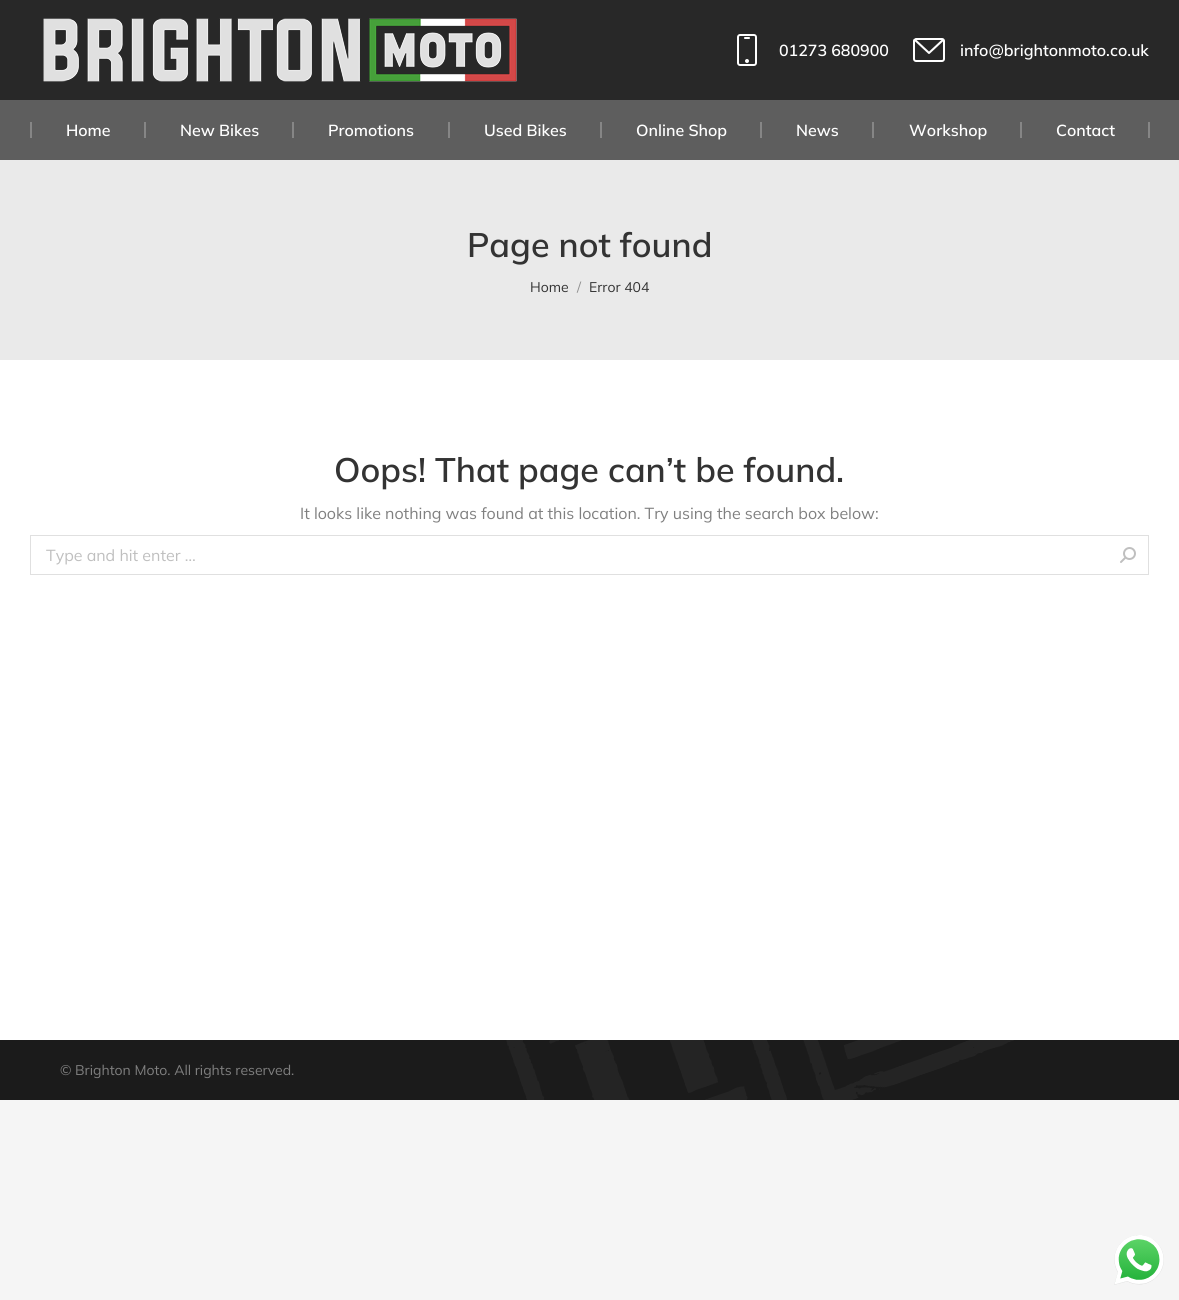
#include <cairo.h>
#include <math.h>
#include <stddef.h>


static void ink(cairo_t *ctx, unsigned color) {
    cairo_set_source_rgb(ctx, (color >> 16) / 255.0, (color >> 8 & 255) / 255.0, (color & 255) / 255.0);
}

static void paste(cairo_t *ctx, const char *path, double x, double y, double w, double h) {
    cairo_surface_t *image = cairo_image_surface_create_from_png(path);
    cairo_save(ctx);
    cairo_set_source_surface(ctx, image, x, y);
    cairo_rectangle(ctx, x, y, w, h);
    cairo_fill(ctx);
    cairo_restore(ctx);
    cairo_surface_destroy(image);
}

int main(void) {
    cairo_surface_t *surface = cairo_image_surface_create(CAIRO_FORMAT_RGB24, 1179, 1300);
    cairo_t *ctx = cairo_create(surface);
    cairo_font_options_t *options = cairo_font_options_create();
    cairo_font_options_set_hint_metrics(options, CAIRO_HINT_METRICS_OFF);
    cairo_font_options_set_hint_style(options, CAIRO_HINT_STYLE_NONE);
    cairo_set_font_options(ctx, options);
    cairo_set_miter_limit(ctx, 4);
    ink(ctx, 0xF5F5F5);
    cairo_paint(ctx);
    ink(ctx, 0xFFFFFF);
    cairo_rectangle(ctx, 0, 360, 1179, 680);
    cairo_fill(ctx);
    ink(ctx, 0x282828);
    cairo_rectangle(ctx, 0, 0, 1179, 100);
    cairo_fill(ctx);
    paste(ctx, "media/1.png", 43, 18, 474, 64);
    paste(ctx, "media/2.png", 737, 34, 20, 32);
    cairo_select_font_face(ctx, "Mulish SemiBold", CAIRO_FONT_SLANT_NORMAL, CAIRO_FONT_WEIGHT_NORMAL);
    cairo_set_font_size(ctx, 16);
    ink(ctx, 0xFFFFFF);
    cairo_move_to(ctx, 779, 56);
    cairo_show_text(ctx, "01273 680900");
    paste(ctx, "media/3.png", 913, 38, 32, 24);
    cairo_move_to(ctx, 960, 56);
    cairo_show_text(ctx, "info@brightonmoto.co.uk");
    ink(ctx, 0x5E5E5E);
    cairo_rectangle(ctx, 0, 100, 1179, 60);
    cairo_fill(ctx);
    ink(ctx, 0x868686);
    cairo_rectangle(ctx, 30, 122, 2, 16);
    cairo_fill(ctx);
    ink(ctx, 0xFFFFFF);
    cairo_move_to(ctx, 66, 136);
    cairo_show_text(ctx, "Home");
    ink(ctx, 0x868686);
    cairo_rectangle(ctx, 144, 122, 2, 16);
    cairo_fill(ctx);
    ink(ctx, 0xFFFFFF);
    cairo_move_to(ctx, 180, 136);
    cairo_show_text(ctx, "New Bikes");
    ink(ctx, 0x868686);
    cairo_rectangle(ctx, 292, 122, 2, 16);
    cairo_fill(ctx);
    ink(ctx, 0xFFFFFF);
    cairo_move_to(ctx, 328, 136);
    cairo_show_text(ctx, "Promotions");
    ink(ctx, 0x868686);
    cairo_rectangle(ctx, 448, 122, 2, 16);
    cairo_fill(ctx);
    ink(ctx, 0xFFFFFF);
    cairo_move_to(ctx, 484, 136);
    cairo_show_text(ctx, "Used Bikes");
    ink(ctx, 0x868686);
    cairo_rectangle(ctx, 600, 122, 2, 16);
    cairo_fill(ctx);
    ink(ctx, 0xFFFFFF);
    cairo_move_to(ctx, 636, 136);
    cairo_show_text(ctx, "Online Shop");
    ink(ctx, 0x868686);
    cairo_rectangle(ctx, 760, 122, 2, 16);
    cairo_fill(ctx);
    ink(ctx, 0xFFFFFF);
    cairo_move_to(ctx, 796, 136);
    cairo_show_text(ctx, "News");
    ink(ctx, 0x868686);
    cairo_rectangle(ctx, 872, 122, 2, 16);
    cairo_fill(ctx);
    ink(ctx, 0xFFFFFF);
    cairo_move_to(ctx, 909, 136);
    cairo_show_text(ctx, "Workshop");
    ink(ctx, 0x868686);
    cairo_rectangle(ctx, 1020, 122, 2, 16);
    cairo_fill(ctx);
    ink(ctx, 0xFFFFFF);
    cairo_move_to(ctx, 1056, 136);
    cairo_show_text(ctx, "Contact");
    ink(ctx, 0x868686);
    cairo_rectangle(ctx, 1148, 122, 2, 16);
    cairo_fill(ctx);
    ink(ctx, 0xEAEAEA);
    cairo_rectangle(ctx, 0, 160, 1179, 200);
    cairo_fill(ctx);
    cairo_set_font_size(ctx, 34);
    ink(ctx, 0x333333);
    cairo_move_to(ctx, 467, 257);
    cairo_show_text(ctx, "Page not found");
    cairo_select_font_face(ctx, "Mulish", CAIRO_FONT_SLANT_NORMAL, CAIRO_FONT_WEIGHT_NORMAL);
    cairo_set_font_size(ctx, 14);
    cairo_move_to(ctx, 530, 292);
    cairo_show_text(ctx, "Home");
    ink(ctx, 0x8F8F8F);
    cairo_move_to(ctx, 577, 292);
    cairo_show_text(ctx, "/");
    ink(ctx, 0x333333);
    cairo_move_to(ctx, 589, 292);
    cairo_show_text(ctx, "Error 404");
    cairo_select_font_face(ctx, "Mulish SemiBold", CAIRO_FONT_SLANT_NORMAL, CAIRO_FONT_WEIGHT_NORMAL);
    cairo_set_font_size(ctx, 34);
    cairo_move_to(ctx, 334, 482);
    cairo_show_text(ctx, "Oops! That page can’t be found.");
    cairo_select_font_face(ctx, "Mulish", CAIRO_FONT_SLANT_NORMAL, CAIRO_FONT_WEIGHT_NORMAL);
    cairo_set_font_size(ctx, 16);
    ink(ctx, 0x7F7F7F);
    cairo_move_to(ctx, 300, 519);
    cairo_show_text(ctx, "It looks like nothing was found at this location. Try using the search box below:");
    cairo_rectangle(ctx, 30.5, 535.5, 1118, 39);
    ink(ctx, 0xE0E0E0);
    cairo_set_line_width(ctx, 1);
    cairo_stroke(ctx);
    ink(ctx, 0xBFBFBF);
    cairo_move_to(ctx, 46, 561);
    cairo_show_text(ctx, "Type and hit enter …");
    paste(ctx, "media/4.png", 1120, 547, 16, 16);
    ink(ctx, 0x1B1B1B);
    cairo_rectangle(ctx, 0, 1040, 1179, 60);
    cairo_fill(ctx);
    paste(ctx, "media/5.png", 506, 1040, 508, 60);
    cairo_set_font_size(ctx, 14);
    ink(ctx, 0x7F7F7F);
    cairo_move_to(ctx, 60, 1075);
    cairo_show_text(ctx, "© Brighton Moto. All rights reserved.");
    paste(ctx, "media/6.png", 1114, 1235, 50, 50);
    cairo_surface_write_to_png(surface, "image.png");
    cairo_font_options_destroy(options);
    cairo_destroy(ctx);
    cairo_surface_destroy(surface);
    return 0;
}
